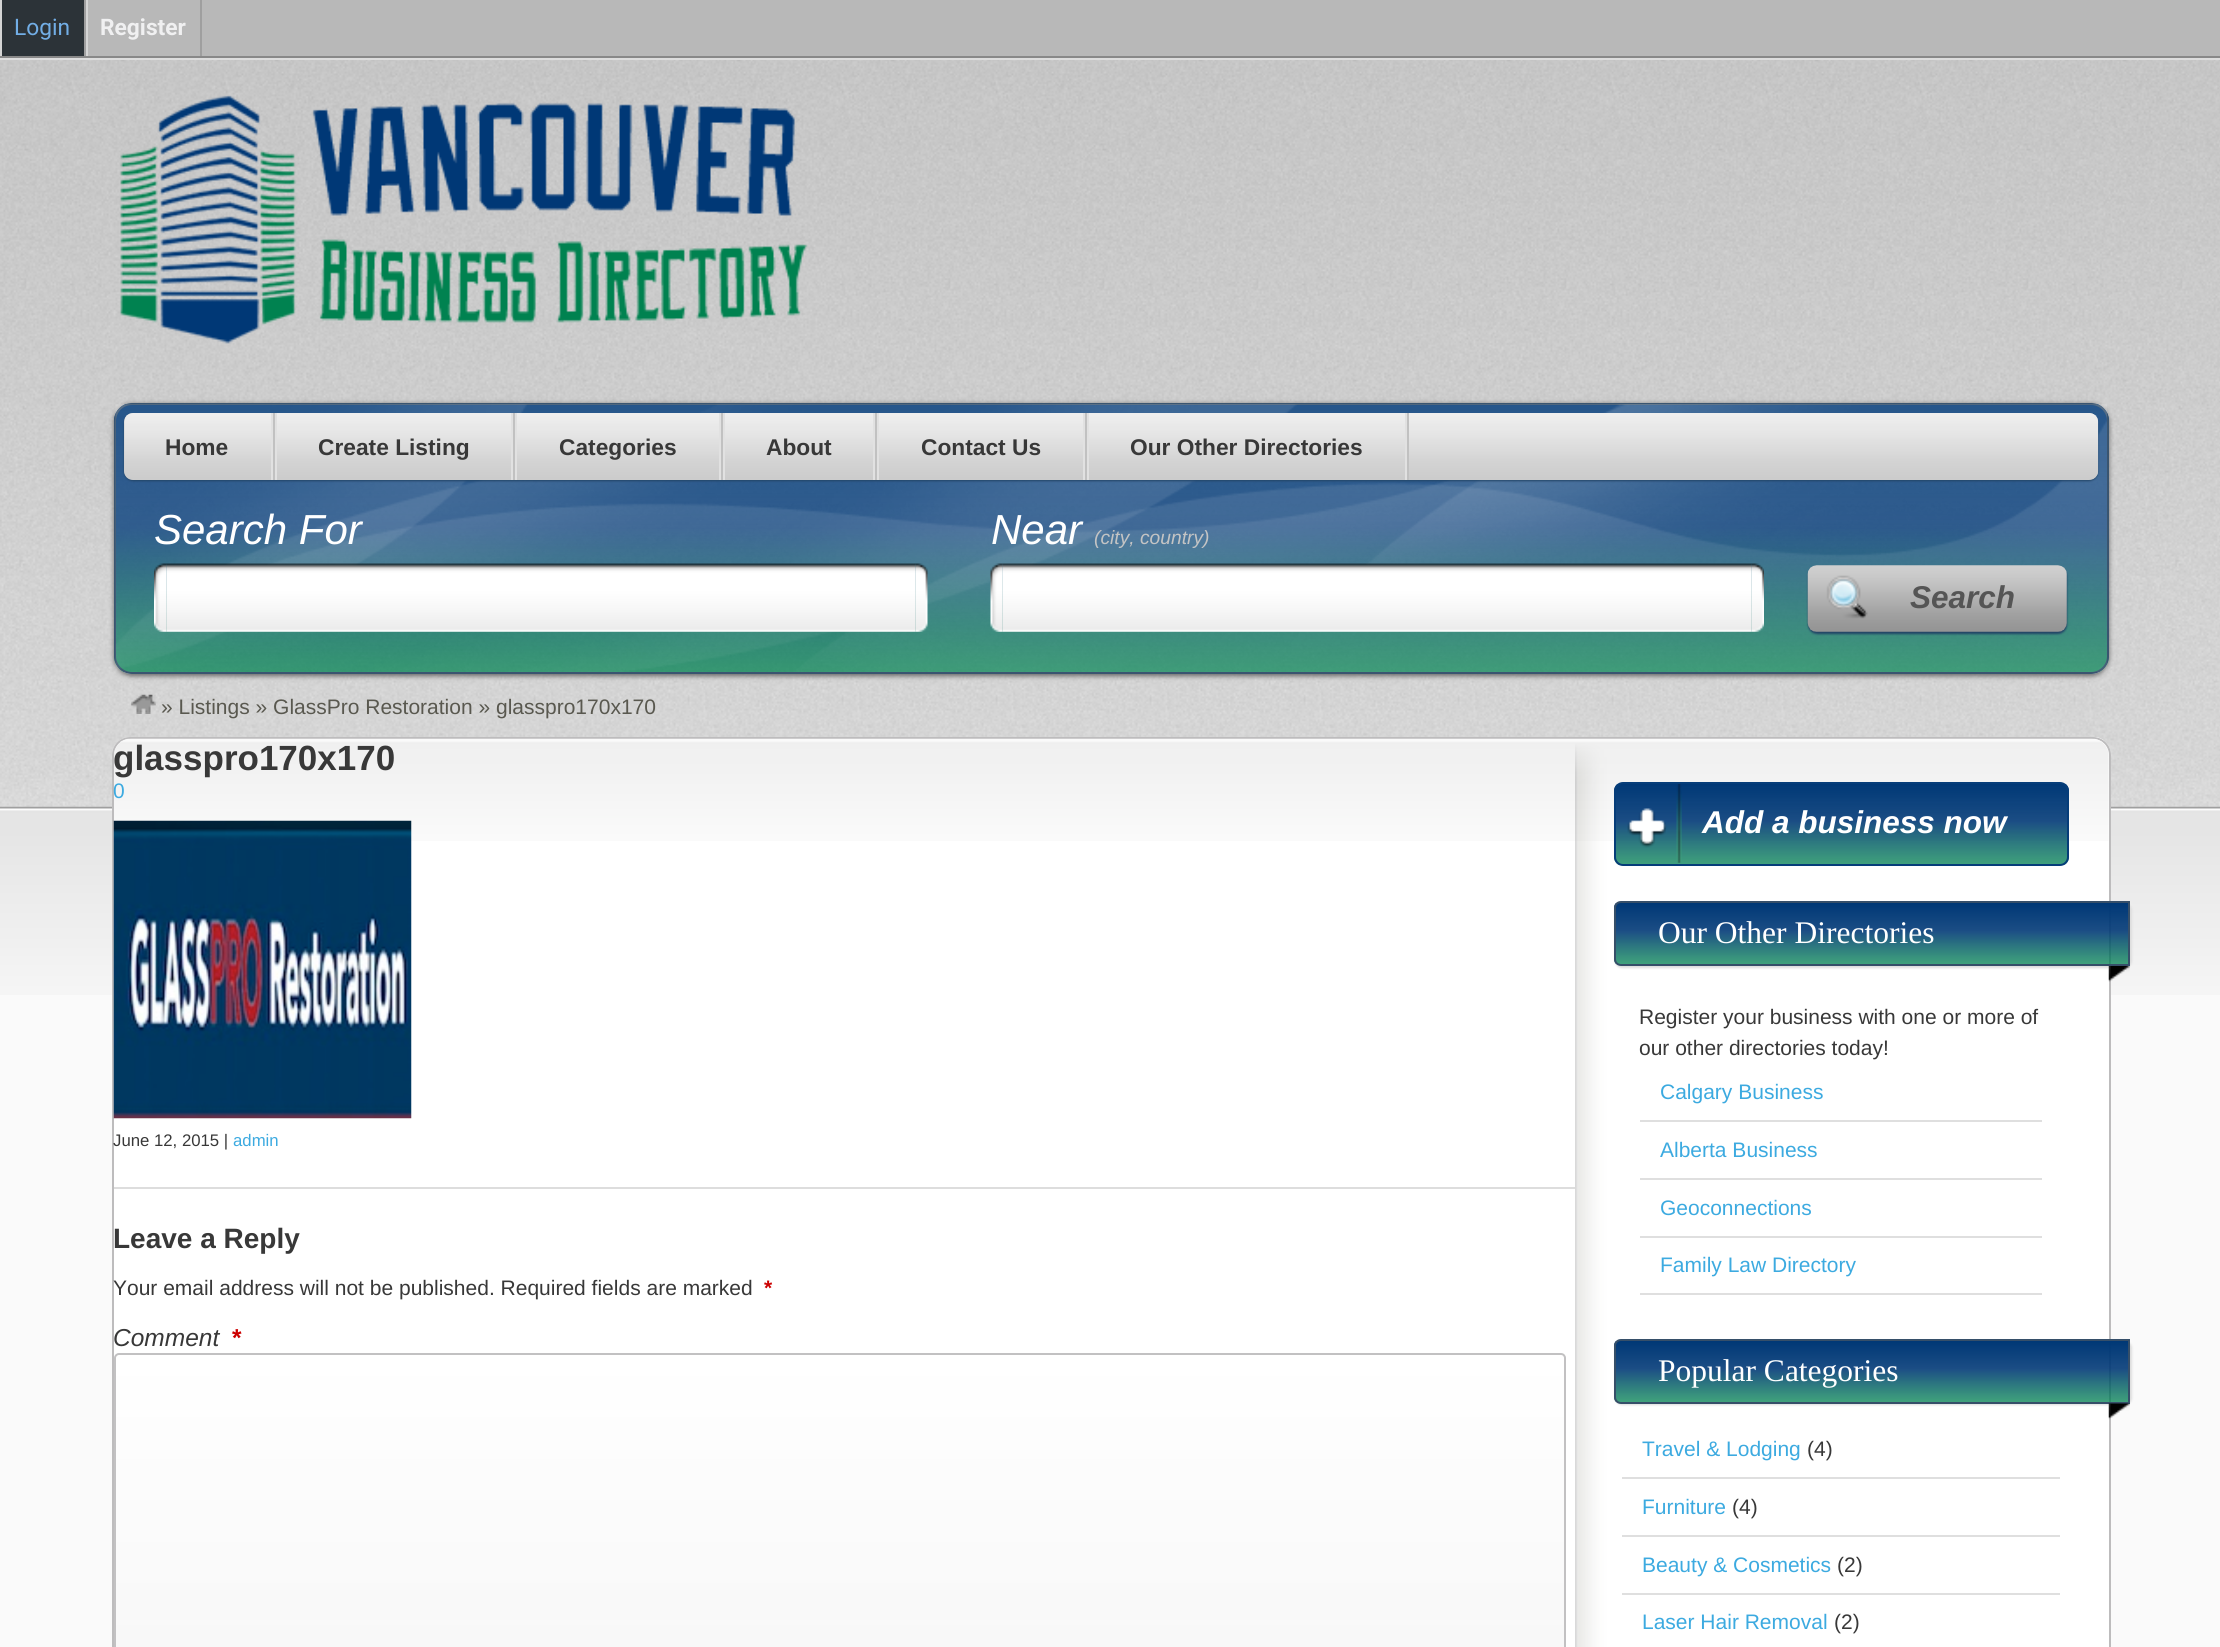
#include <cairo.h>
#include <math.h>
#include <stddef.h>

typedef struct { double x, y, w, h; unsigned color; } box_t;

static void ink(cairo_t *ctx, unsigned color) {
    cairo_set_source_rgb(ctx, (color >> 16) / 255.0, (color >> 8 & 255) / 255.0, (color & 255) / 255.0);
}

static void round_path(cairo_t *ctx, double x, double y, double w, double h, double r) {
    cairo_new_sub_path(ctx);
    cairo_arc(ctx, x + w - r, y + h - r, r, 0, M_PI / 2);
    cairo_arc(ctx, x + r, y + h - r, r, M_PI / 2, M_PI);
    cairo_arc(ctx, x + r, y + r, r, M_PI, 1.5 * M_PI);
    cairo_arc(ctx, x + w - r, y + r, r, 1.5 * M_PI, 2 * M_PI);
    cairo_close_path(ctx);
}

static void blur_box(cairo_t *ctx, double x, double y, double w, double h, double r, double blur, double alpha) {
    cairo_push_group_with_content(ctx, CAIRO_CONTENT_ALPHA);
    cairo_set_operator(ctx, CAIRO_OPERATOR_SOURCE);
    for (int i = 15; i >= -15 && fmin(w, h) + blur * i / 3 > 0; i -= 2) {
        double e = blur * i / 6;
        cairo_set_source_rgba(ctx, 0, 0, 0, alpha * erfc((i - 1) / 8.5) / 2);
        round_path(ctx, x - e, y - e, w + 2 * e, h + 2 * e, fmax(0, fmin(r + e + blur * .6, fmin(w, h) / 2 + e)));
        cairo_fill(ctx);
    }
    cairo_pattern_t *soft = cairo_pop_group(ctx);
    cairo_mask(ctx, soft);
    cairo_pattern_destroy(soft);
}

static void paste(cairo_t *ctx, const char *path, double x, double y, double w, double h) {
    cairo_surface_t *image = cairo_image_surface_create_from_png(path);
    cairo_save(ctx);
    cairo_set_source_surface(ctx, image, x, y);
    cairo_rectangle(ctx, x, y, w, h);
    cairo_fill(ctx);
    cairo_restore(ctx);
    cairo_surface_destroy(image);
}

int main(void) {
    cairo_surface_t *surface = cairo_image_surface_create(CAIRO_FORMAT_RGB24, 2220, 1647);
    cairo_t *ctx = cairo_create(surface);
    cairo_font_options_t *options = cairo_font_options_create();
    cairo_font_options_set_hint_metrics(options, CAIRO_HINT_METRICS_OFF);
    cairo_font_options_set_hint_style(options, CAIRO_HINT_STYLE_NONE);
    cairo_set_font_options(ctx, options);
    cairo_set_miter_limit(ctx, 4);
    cairo_pattern_t *gradient;
    ink(ctx, 0xFFFFFF);
    cairo_paint(ctx);
    paste(ctx, "media/1.png", 0, 60, 2220, 747);
    {
        static const box_t items[] = {
            {0, 58, 2220, 2, 0xDDDDDD},
            {88, 0, 2132, 56, 0xB8B8B8},
            {0, 56, 2220, 2, 0x888888},
            {84, 0, 2, 56, 0x9F9F9F},
            {0, 0, 2, 56, 0xD5D5D5},
            {2, 0, 82, 56, 0x2C3338},
        };
        for (size_t i = 0; i < sizeof items / sizeof *items; i++) {
            ink(ctx, items[i].color);
            cairo_rectangle(ctx, items[i].x, items[i].y, items[i].w, items[i].h);
            cairo_fill(ctx);
        }
    }
    cairo_select_font_face(ctx, "Roboto", CAIRO_FONT_SLANT_NORMAL, CAIRO_FONT_WEIGHT_NORMAL);
    cairo_set_font_size(ctx, 22.75);
    ink(ctx, 0x72AEE6);
    cairo_move_to(ctx, 14, 35);
    cairo_show_text(ctx, "Login");
    ink(ctx, 0x9F9F9F);
    cairo_rectangle(ctx, 200, 0, 2, 56);
    cairo_fill(ctx);
    ink(ctx, 0xD5D5D5);
    cairo_rectangle(ctx, 86, 0, 2, 56);
    cairo_fill(ctx);
    cairo_select_font_face(ctx, "Roboto", CAIRO_FONT_SLANT_NORMAL, CAIRO_FONT_WEIGHT_BOLD);
    ink(ctx, 0xF0F0F1);
    cairo_move_to(ctx, 100, 35);
    cairo_show_text(ctx, "Register");
    paste(ctx, "media/2.png", 120, 95, 688, 249);
    cairo_save(ctx);
    cairo_set_fill_rule(ctx, CAIRO_FILL_RULE_EVEN_ODD);
    cairo_new_path(ctx);
    cairo_move_to(ctx, 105, 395);
    cairo_line_to(ctx, 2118, 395);
    cairo_line_to(ctx, 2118, 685);
    cairo_line_to(ctx, 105, 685);
    cairo_close_path(ctx);
    cairo_move_to(ctx, 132, 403);
    cairo_line_to(ctx, 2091, 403);
    cairo_curve_to(ctx, 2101, 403, 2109, 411, 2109, 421);
    cairo_line_to(ctx, 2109, 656);
    cairo_curve_to(ctx, 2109, 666, 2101, 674, 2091, 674);
    cairo_line_to(ctx, 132, 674);
    cairo_curve_to(ctx, 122, 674, 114, 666, 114, 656);
    cairo_line_to(ctx, 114, 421);
    cairo_curve_to(ctx, 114, 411, 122, 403, 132, 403);
    cairo_close_path(ctx);
    cairo_clip(ctx);
    ink(ctx, 0x666666);
    blur_box(ctx, 114, 404, 1995, 272, 18, 2.5, 1);
    cairo_restore(ctx);
    cairo_save(ctx);
    round_path(ctx, 114, 403, 1995, 271, 18);
    cairo_clip(ctx);
    gradient = cairo_pattern_create_linear(1111, 404, 1111, 672);
    cairo_pattern_add_color_stop_rgba(gradient, 0, 0, 0.22, 0.463, 1);
    cairo_pattern_add_color_stop_rgba(gradient, 0.46, 0, 0.22, 0.463, 0.89);
    cairo_pattern_add_color_stop_rgba(gradient, 1, 0, 0.51, 0.314, 0.75);
    cairo_set_source(ctx, gradient);
    cairo_pattern_destroy(gradient);
    cairo_rectangle(ctx, 114, 404, 1995, 268);
    cairo_fill(ctx);
    cairo_restore(ctx);
    round_path(ctx, 115, 404, 1993, 269, 17);
    ink(ctx, 0x3A5570);
    cairo_stroke(ctx);
    paste(ctx, "media/3.png", 115, 404, 1992, 268);
    ink(ctx, 0x224466);
    blur_box(ctx, 124, 415, 1974, 66, 9, 1, 1);
    ink(ctx, 0xCCCCCC);
    round_path(ctx, 124, 413, 1974, 67, 9);
    cairo_fill(ctx);
    paste(ctx, "media/4.png", 124, 413, 1975, 67);
    ink(ctx, 0xC1C1C1);
    cairo_rectangle(ctx, 273, 413, 2, 67);
    cairo_fill(ctx);
    ink(ctx, 0xE1E1E1);
    cairo_rectangle(ctx, 271, 413, 2, 67);
    cairo_fill(ctx);
    cairo_select_font_face(ctx, "Liberation Sans", CAIRO_FONT_SLANT_NORMAL, CAIRO_FONT_WEIGHT_BOLD);
    ink(ctx, 0x383838);
    cairo_move_to(ctx, 165, 455);
    cairo_show_text(ctx, "Home");
    {
        static const box_t items[] = {
            {513, 413, 2, 67, 0xC1C1C1},
            {275, 413, 2, 67, 0xE1E1E1},
            {511, 413, 2, 67, 0xE1E1E1},
        };
        for (size_t i = 0; i < sizeof items / sizeof *items; i++) {
            ink(ctx, items[i].color);
            cairo_rectangle(ctx, items[i].x, items[i].y, items[i].w, items[i].h);
            cairo_fill(ctx);
        }
    }
    ink(ctx, 0x383838);
    cairo_move_to(ctx, 318, 455);
    cairo_show_text(ctx, "Create Listing");
    {
        static const box_t items[] = {
            {721, 413, 2, 67, 0xC1C1C1},
            {515, 413, 2, 67, 0xE1E1E1},
            {719, 413, 2, 67, 0xE1E1E1},
        };
        for (size_t i = 0; i < sizeof items / sizeof *items; i++) {
            ink(ctx, items[i].color);
            cairo_rectangle(ctx, items[i].x, items[i].y, items[i].w, items[i].h);
            cairo_fill(ctx);
        }
    }
    ink(ctx, 0x383838);
    cairo_move_to(ctx, 559, 455);
    cairo_show_text(ctx, "Categories");
    {
        static const box_t items[] = {
            {875, 413, 2, 67, 0xC1C1C1},
            {723, 413, 2, 67, 0xE1E1E1},
            {873, 413, 2, 67, 0xE1E1E1},
        };
        for (size_t i = 0; i < sizeof items / sizeof *items; i++) {
            ink(ctx, items[i].color);
            cairo_rectangle(ctx, items[i].x, items[i].y, items[i].w, items[i].h);
            cairo_fill(ctx);
        }
    }
    ink(ctx, 0x383838);
    cairo_move_to(ctx, 766, 455);
    cairo_show_text(ctx, "About");
    {
        static const box_t items[] = {
            {1085, 413, 2, 67, 0xC1C1C1},
            {877, 413, 2, 67, 0xE1E1E1},
            {1083, 413, 2, 67, 0xE1E1E1},
        };
        for (size_t i = 0; i < sizeof items / sizeof *items; i++) {
            ink(ctx, items[i].color);
            cairo_rectangle(ctx, items[i].x, items[i].y, items[i].w, items[i].h);
            cairo_fill(ctx);
        }
    }
    ink(ctx, 0x383838);
    cairo_move_to(ctx, 921, 455);
    cairo_show_text(ctx, "Contact Us");
    {
        static const box_t items[] = {
            {1407, 413, 2, 67, 0xC1C1C1},
            {1087, 413, 2, 67, 0xE1E1E1},
            {1405, 413, 2, 67, 0xE1E1E1},
        };
        for (size_t i = 0; i < sizeof items / sizeof *items; i++) {
            ink(ctx, items[i].color);
            cairo_rectangle(ctx, items[i].x, items[i].y, items[i].w, items[i].h);
            cairo_fill(ctx);
        }
    }
    ink(ctx, 0x383838);
    cairo_move_to(ctx, 1130, 455);
    cairo_show_text(ctx, "Our Other Directories");
    cairo_select_font_face(ctx, "Liberation Sans", CAIRO_FONT_SLANT_ITALIC, CAIRO_FONT_WEIGHT_NORMAL);
    cairo_set_font_size(ctx, 42);
    ink(ctx, 0xFFFFFF);
    cairo_move_to(ctx, 154, 544);
    cairo_show_text(ctx, "Search For");
    paste(ctx, "media/5.png", 154, 563, 13, 69);
    paste(ctx, "media/6.png", 166, 563, 750, 69);
    paste(ctx, "media/7.png", 915, 563, 13, 69);
    cairo_move_to(ctx, 991, 544);
    cairo_show_text(ctx, "Near");
    cairo_set_font_size(ctx, 19.25);
    ink(ctx, 0xC4C4C4);
    cairo_move_to(ctx, 1094, 544);
    cairo_show_text(ctx, "(city, country)");
    paste(ctx, "media/8.png", 990, 563, 13, 69);
    paste(ctx, "media/9.png", 1002, 563, 750, 69);
    paste(ctx, "media/10.png", 1751, 563, 13, 69);
    ink(ctx, 0x224466);
    blur_box(ctx, 1808, 567, 259, 67, 9, 1, 1);
    paste(ctx, "media/11.png", 1807, 565, 260, 67);
    cairo_select_font_face(ctx, "Liberation Sans", CAIRO_FONT_SLANT_ITALIC, CAIRO_FONT_WEIGHT_BOLD);
    cairo_set_font_size(ctx, 31.5);
    ink(ctx, 0x555555);
    cairo_move_to(ctx, 1910, 608);
    cairo_show_text(ctx, "Search");
    paste(ctx, "media/12.png", 131, 694, 25, 20);
    cairo_select_font_face(ctx, "Liberation Sans", CAIRO_FONT_SLANT_NORMAL, CAIRO_FONT_WEIGHT_NORMAL);
    cairo_set_font_size(ctx, 21);
    ink(ctx, 0x59584F);
    cairo_move_to(ctx, 161, 714);
    cairo_show_text(ctx, "» Listings » GlassPro Restoration » glasspro170x170");
    ink(ctx, 0xFAFAFA);
    cairo_rectangle(ctx, 0, 995, 2220, 652);
    cairo_fill(ctx);
    paste(ctx, "media/13.png", 0, 806, 2220, 189);
    ink(ctx, 0xFFFFFF);
    round_path(ctx, 112, 737, 1999, 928, 18);
    cairo_fill(ctx);
    paste(ctx, "media/14.png", 1575, 737, 533, 910);
    round_path(ctx, 113, 738, 1997, 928, 17);
    ink(ctx, 0xBDBCBD);
    cairo_stroke(ctx);
    paste(ctx, "media/15.png", 114, 738, 1995, 103);
    cairo_select_font_face(ctx, "Liberation Sans", CAIRO_FONT_SLANT_NORMAL, CAIRO_FONT_WEIGHT_BOLD);
    cairo_set_font_size(ctx, 35);
    ink(ctx, 0x383838);
    cairo_move_to(ctx, 113, 770);
    cairo_show_text(ctx, "glasspro170x170");
    cairo_select_font_face(ctx, "Liberation Sans", CAIRO_FONT_SLANT_NORMAL, CAIRO_FONT_WEIGHT_NORMAL);
    cairo_set_font_size(ctx, 21);
    ink(ctx, 0x3CAAE0);
    cairo_move_to(ctx, 113, 798);
    cairo_show_text(ctx, "0");
    paste(ctx, "media/16.png", 113, 820, 299, 299);
    cairo_set_font_size(ctx, 16.75);
    ink(ctx, 0x383838);
    cairo_move_to(ctx, 113, 1146);
    cairo_show_text(ctx, "June 12, 2015 |");
    ink(ctx, 0x3CAAE0);
    cairo_move_to(ctx, 233, 1146);
    cairo_show_text(ctx, "admin");
    ink(ctx, 0xDDDDDD);
    cairo_rectangle(ctx, 114, 1187, 1461, 2);
    cairo_fill(ctx);
    cairo_select_font_face(ctx, "Liberation Sans", CAIRO_FONT_SLANT_NORMAL, CAIRO_FONT_WEIGHT_BOLD);
    cairo_set_font_size(ctx, 28);
    ink(ctx, 0x383838);
    cairo_move_to(ctx, 113, 1248);
    cairo_show_text(ctx, "Leave a Reply");
    cairo_select_font_face(ctx, "Liberation Sans", CAIRO_FONT_SLANT_NORMAL, CAIRO_FONT_WEIGHT_NORMAL);
    cairo_set_font_size(ctx, 21);
    cairo_move_to(ctx, 113, 1295);
    cairo_show_text(ctx, "Your email address will not be published. Required fields are marked");
    cairo_select_font_face(ctx, "Liberation Sans", CAIRO_FONT_SLANT_NORMAL, CAIRO_FONT_WEIGHT_BOLD);
    ink(ctx, 0xCC0000);
    cairo_move_to(ctx, 764, 1295);
    cairo_show_text(ctx, "*");
    cairo_select_font_face(ctx, "Liberation Sans", CAIRO_FONT_SLANT_ITALIC, CAIRO_FONT_WEIGHT_NORMAL);
    cairo_set_font_size(ctx, 24.5);
    ink(ctx, 0x383838);
    cairo_move_to(ctx, 113, 1346);
    cairo_show_text(ctx, "Comment");
    cairo_select_font_face(ctx, "Liberation Sans", CAIRO_FONT_SLANT_ITALIC, CAIRO_FONT_WEIGHT_BOLD);
    ink(ctx, 0xCC0000);
    cairo_move_to(ctx, 231, 1346);
    cairo_show_text(ctx, "*");
    cairo_save(ctx);
    round_path(ctx, 114, 1353, 1452, 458, 5);
    cairo_clip(ctx);
    gradient = cairo_pattern_create_linear(116, 1355, 116, 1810);
    cairo_pattern_add_color_stop_rgba(gradient, 0, 1, 1, 1, 1);
    cairo_pattern_add_color_stop_rgba(gradient, 1, 0.957, 0.957, 0.957, 1);
    cairo_set_source(ctx, gradient);
    cairo_pattern_destroy(gradient);
    cairo_rectangle(ctx, 114, 1355, 1452, 292);
    cairo_fill(ctx);
    cairo_restore(ctx);
    round_path(ctx, 115, 1354, 1450, 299, 4);
    ink(ctx, 0xC2C1C2);
    cairo_stroke(ctx);
    cairo_save(ctx);
    round_path(ctx, 1614, 782, 455, 84, 9);
    cairo_clip(ctx);
    gradient = cairo_pattern_create_linear(1841, 784, 1841, 865);
    cairo_pattern_add_color_stop_rgba(gradient, 0, 0, 0.22, 0.463, 1);
    cairo_pattern_add_color_stop_rgba(gradient, 0.46, 0, 0.22, 0.463, 0.89);
    cairo_pattern_add_color_stop_rgba(gradient, 1, 0, 0.51, 0.314, 0.75);
    cairo_set_source(ctx, gradient);
    cairo_pattern_destroy(gradient);
    cairo_rectangle(ctx, 1614, 784, 455, 81);
    cairo_fill(ctx);
    cairo_restore(ctx);
    round_path(ctx, 1615, 783, 453, 82, 8);
    ink(ctx, 0x063D79);
    cairo_stroke(ctx);
    paste(ctx, "media/17.png", 1627, 784, 55, 79);
    cairo_set_font_size(ctx, 31.5);
    ink(ctx, 0xFFFFFF);
    cairo_move_to(ctx, 1702, 833);
    cairo_show_text(ctx, "Add a business now");
    cairo_save(ctx);
    cairo_set_fill_rule(ctx, CAIRO_FILL_RULE_EVEN_ODD);
    cairo_new_path(ctx);
    cairo_move_to(ctx, 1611, 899);
    cairo_line_to(ctx, 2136, 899);
    cairo_line_to(ctx, 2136, 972);
    cairo_line_to(ctx, 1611, 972);
    cairo_close_path(ctx);
    cairo_move_to(ctx, 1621, 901);
    cairo_line_to(ctx, 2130, 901);
    cairo_line_to(ctx, 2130, 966);
    cairo_line_to(ctx, 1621, 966);
    cairo_curve_to(ctx, 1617, 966, 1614, 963, 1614, 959);
    cairo_line_to(ctx, 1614, 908);
    cairo_curve_to(ctx, 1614, 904, 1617, 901, 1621, 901);
    cairo_close_path(ctx);
    cairo_clip(ctx);
    ink(ctx, 0xDDDDDD);
    blur_box(ctx, 1615, 903, 517, 65, 7, 1, 1);
    cairo_restore(ctx);
    cairo_save(ctx);
    cairo_new_path(ctx);
    cairo_move_to(ctx, 1621, 901);
    cairo_line_to(ctx, 2130, 901);
    cairo_line_to(ctx, 2130, 966);
    cairo_line_to(ctx, 1621, 966);
    cairo_curve_to(ctx, 1617, 966, 1614, 963, 1614, 959);
    cairo_line_to(ctx, 1614, 908);
    cairo_curve_to(ctx, 1614, 904, 1617, 901, 1621, 901);
    cairo_close_path(ctx);
    cairo_clip(ctx);
    gradient = cairo_pattern_create_linear(1872, 903, 1872, 964);
    cairo_pattern_add_color_stop_rgba(gradient, 0, 0, 0.22, 0.463, 1);
    cairo_pattern_add_color_stop_rgba(gradient, 0.46, 0, 0.22, 0.463, 0.89);
    cairo_pattern_add_color_stop_rgba(gradient, 1, 0, 0.51, 0.314, 0.75);
    cairo_set_source(ctx, gradient);
    cairo_pattern_destroy(gradient);
    cairo_rectangle(ctx, 1614, 903, 514, 61);
    cairo_fill(ctx);
    cairo_restore(ctx);
    cairo_new_path(ctx);
    cairo_move_to(ctx, 1621, 902);
    cairo_line_to(ctx, 2129, 902);
    cairo_line_to(ctx, 2129, 965);
    cairo_line_to(ctx, 1621, 965);
    cairo_curve_to(ctx, 1617.5, 965, 1615, 962.5, 1615, 959);
    cairo_line_to(ctx, 1615, 908);
    cairo_curve_to(ctx, 1615, 904.5, 1617.5, 902, 1621, 902);
    cairo_close_path(ctx);
    ink(ctx, 0x364F69);
    cairo_stroke(ctx);
    paste(ctx, "media/18.png", 2108, 966, 22, 16);
    cairo_select_font_face(ctx, "Liberation Serif", CAIRO_FONT_SLANT_NORMAL, CAIRO_FONT_WEIGHT_NORMAL);
    ink(ctx, 0xFFFFFF);
    cairo_move_to(ctx, 1658, 943);
    cairo_show_text(ctx, "Our Other Directories");
    cairo_select_font_face(ctx, "Liberation Sans", CAIRO_FONT_SLANT_NORMAL, CAIRO_FONT_WEIGHT_NORMAL);
    cairo_set_font_size(ctx, 21);
    ink(ctx, 0x383838);
    cairo_move_to(ctx, 1639, 1024);
    cairo_show_text(ctx, "Register your business with one or more of");
    cairo_move_to(ctx, 1639, 1055);
    cairo_show_text(ctx, "our other directories today!");
    ink(ctx, 0xDFDFDF);
    cairo_rectangle(ctx, 1640, 1120, 402, 2);
    cairo_fill(ctx);
    ink(ctx, 0x3CAAE0);
    cairo_move_to(ctx, 1660, 1099);
    cairo_show_text(ctx, "Calgary Business");
    ink(ctx, 0xDFDFDF);
    cairo_rectangle(ctx, 1640, 1178, 402, 2);
    cairo_fill(ctx);
    ink(ctx, 0x3CAAE0);
    cairo_move_to(ctx, 1660, 1157);
    cairo_show_text(ctx, "Alberta Business");
    ink(ctx, 0xDFDFDF);
    cairo_rectangle(ctx, 1640, 1236, 402, 2);
    cairo_fill(ctx);
    ink(ctx, 0x3CAAE0);
    cairo_move_to(ctx, 1660, 1215);
    cairo_show_text(ctx, "Geoconnections");
    ink(ctx, 0xDFDFDF);
    cairo_rectangle(ctx, 1640, 1293, 402, 2);
    cairo_fill(ctx);
    ink(ctx, 0x3CAAE0);
    cairo_move_to(ctx, 1660, 1272);
    cairo_show_text(ctx, "Family Law Directory");
    cairo_save(ctx);
    cairo_set_fill_rule(ctx, CAIRO_FILL_RULE_EVEN_ODD);
    cairo_new_path(ctx);
    cairo_move_to(ctx, 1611, 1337);
    cairo_line_to(ctx, 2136, 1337);
    cairo_line_to(ctx, 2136, 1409);
    cairo_line_to(ctx, 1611, 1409);
    cairo_close_path(ctx);
    cairo_move_to(ctx, 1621, 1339);
    cairo_line_to(ctx, 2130, 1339);
    cairo_line_to(ctx, 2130, 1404);
    cairo_line_to(ctx, 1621, 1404);
    cairo_curve_to(ctx, 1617, 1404, 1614, 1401, 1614, 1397);
    cairo_line_to(ctx, 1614, 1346);
    cairo_curve_to(ctx, 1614, 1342, 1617, 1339, 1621, 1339);
    cairo_close_path(ctx);
    cairo_clip(ctx);
    ink(ctx, 0xDDDDDD);
    blur_box(ctx, 1615, 1341, 517, 64, 7, 1, 1);
    cairo_restore(ctx);
    cairo_save(ctx);
    cairo_new_path(ctx);
    cairo_move_to(ctx, 1621, 1339);
    cairo_line_to(ctx, 2130, 1339);
    cairo_line_to(ctx, 2130, 1404);
    cairo_line_to(ctx, 1621, 1404);
    cairo_curve_to(ctx, 1617, 1404, 1614, 1401, 1614, 1397);
    cairo_line_to(ctx, 1614, 1346);
    cairo_curve_to(ctx, 1614, 1342, 1617, 1339, 1621, 1339);
    cairo_close_path(ctx);
    cairo_clip(ctx);
    gradient = cairo_pattern_create_linear(1872, 1341, 1872, 1402);
    cairo_pattern_add_color_stop_rgba(gradient, 0, 0, 0.22, 0.463, 1);
    cairo_pattern_add_color_stop_rgba(gradient, 0.46, 0, 0.22, 0.463, 0.89);
    cairo_pattern_add_color_stop_rgba(gradient, 1, 0, 0.51, 0.314, 0.75);
    cairo_set_source(ctx, gradient);
    cairo_pattern_destroy(gradient);
    cairo_rectangle(ctx, 1614, 1341, 514, 61);
    cairo_fill(ctx);
    cairo_restore(ctx);
    cairo_new_path(ctx);
    cairo_move_to(ctx, 1621, 1340);
    cairo_line_to(ctx, 2129, 1340);
    cairo_line_to(ctx, 2129, 1403);
    cairo_line_to(ctx, 1621, 1403);
    cairo_curve_to(ctx, 1617.5, 1403, 1615, 1400.5, 1615, 1397);
    cairo_line_to(ctx, 1615, 1346);
    cairo_curve_to(ctx, 1615, 1342.5, 1617.5, 1340, 1621, 1340);
    cairo_close_path(ctx);
    ink(ctx, 0x364F69);
    cairo_stroke(ctx);
    paste(ctx, "media/19.png", 2108, 1403, 22, 17);
    cairo_select_font_face(ctx, "Liberation Serif", CAIRO_FONT_SLANT_NORMAL, CAIRO_FONT_WEIGHT_NORMAL);
    cairo_set_font_size(ctx, 31.5);
    ink(ctx, 0xFFFFFF);
    cairo_move_to(ctx, 1658, 1381);
    cairo_show_text(ctx, "Popular Categories");
    ink(ctx, 0xDFDFDF);
    cairo_rectangle(ctx, 1622, 1477, 438, 2);
    cairo_fill(ctx);
    cairo_select_font_face(ctx, "Liberation Sans", CAIRO_FONT_SLANT_NORMAL, CAIRO_FONT_WEIGHT_NORMAL);
    cairo_set_font_size(ctx, 21);
    ink(ctx, 0x3CAAE0);
    cairo_move_to(ctx, 1642, 1456);
    cairo_show_text(ctx, "Travel & Lodging");
    ink(ctx, 0x383838);
    cairo_move_to(ctx, 1807, 1456);
    cairo_show_text(ctx, "(4)");
    ink(ctx, 0xDFDFDF);
    cairo_rectangle(ctx, 1622, 1535, 438, 2);
    cairo_fill(ctx);
    ink(ctx, 0x3CAAE0);
    cairo_move_to(ctx, 1642, 1514);
    cairo_show_text(ctx, "Furniture");
    ink(ctx, 0x383838);
    cairo_move_to(ctx, 1732, 1514);
    cairo_show_text(ctx, "(4)");
    ink(ctx, 0xDFDFDF);
    cairo_rectangle(ctx, 1622, 1593, 438, 2);
    cairo_fill(ctx);
    ink(ctx, 0x3CAAE0);
    cairo_move_to(ctx, 1642, 1572);
    cairo_show_text(ctx, "Beauty & Cosmetics");
    ink(ctx, 0x383838);
    cairo_move_to(ctx, 1837, 1572);
    cairo_show_text(ctx, "(2)");
    ink(ctx, 0x3CAAE0);
    cairo_move_to(ctx, 1642, 1629);
    cairo_show_text(ctx, "Laser Hair Removal");
    ink(ctx, 0x383838);
    cairo_move_to(ctx, 1834, 1629);
    cairo_show_text(ctx, "(2)");
    cairo_surface_write_to_png(surface, "image.png");
    cairo_font_options_destroy(options);
    cairo_destroy(ctx);
    cairo_surface_destroy(surface);
    return 0;
}
